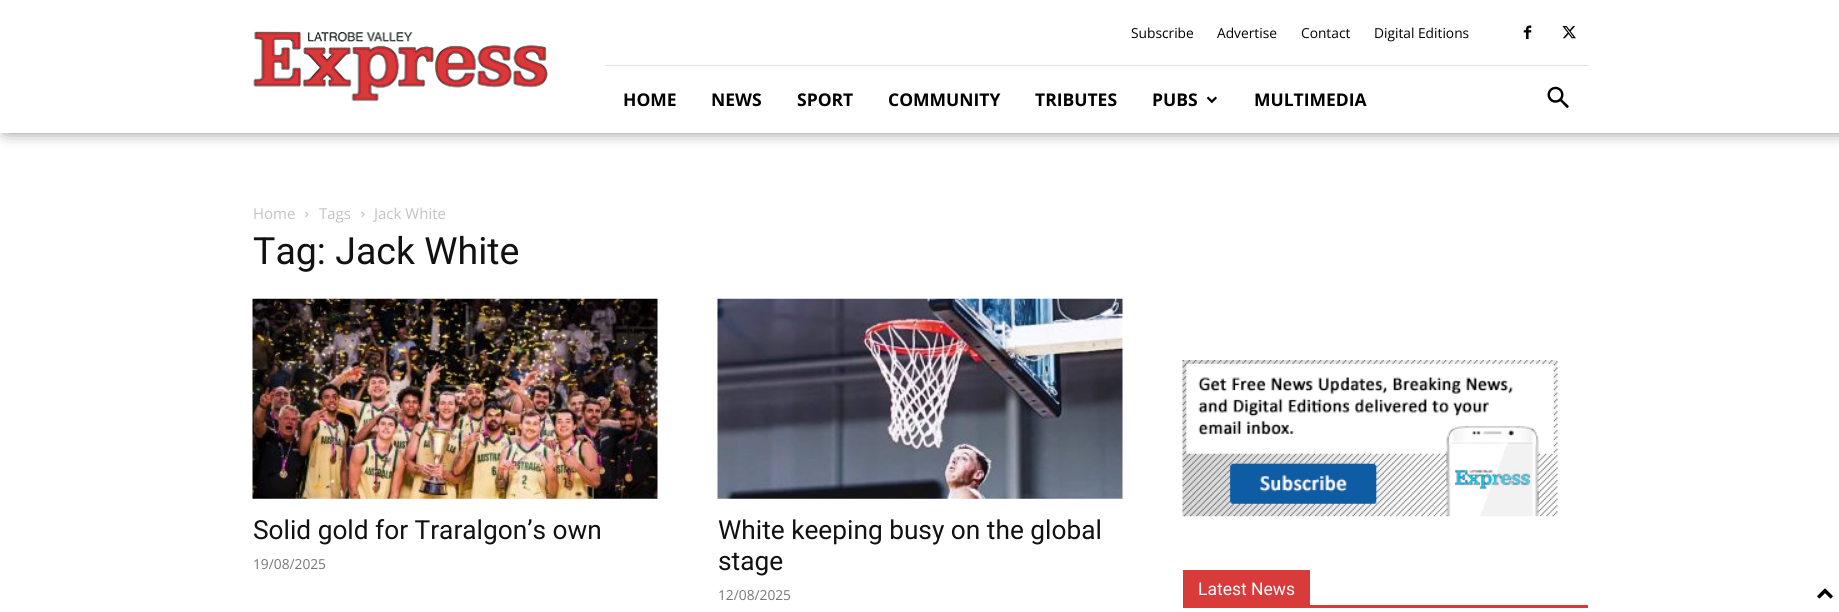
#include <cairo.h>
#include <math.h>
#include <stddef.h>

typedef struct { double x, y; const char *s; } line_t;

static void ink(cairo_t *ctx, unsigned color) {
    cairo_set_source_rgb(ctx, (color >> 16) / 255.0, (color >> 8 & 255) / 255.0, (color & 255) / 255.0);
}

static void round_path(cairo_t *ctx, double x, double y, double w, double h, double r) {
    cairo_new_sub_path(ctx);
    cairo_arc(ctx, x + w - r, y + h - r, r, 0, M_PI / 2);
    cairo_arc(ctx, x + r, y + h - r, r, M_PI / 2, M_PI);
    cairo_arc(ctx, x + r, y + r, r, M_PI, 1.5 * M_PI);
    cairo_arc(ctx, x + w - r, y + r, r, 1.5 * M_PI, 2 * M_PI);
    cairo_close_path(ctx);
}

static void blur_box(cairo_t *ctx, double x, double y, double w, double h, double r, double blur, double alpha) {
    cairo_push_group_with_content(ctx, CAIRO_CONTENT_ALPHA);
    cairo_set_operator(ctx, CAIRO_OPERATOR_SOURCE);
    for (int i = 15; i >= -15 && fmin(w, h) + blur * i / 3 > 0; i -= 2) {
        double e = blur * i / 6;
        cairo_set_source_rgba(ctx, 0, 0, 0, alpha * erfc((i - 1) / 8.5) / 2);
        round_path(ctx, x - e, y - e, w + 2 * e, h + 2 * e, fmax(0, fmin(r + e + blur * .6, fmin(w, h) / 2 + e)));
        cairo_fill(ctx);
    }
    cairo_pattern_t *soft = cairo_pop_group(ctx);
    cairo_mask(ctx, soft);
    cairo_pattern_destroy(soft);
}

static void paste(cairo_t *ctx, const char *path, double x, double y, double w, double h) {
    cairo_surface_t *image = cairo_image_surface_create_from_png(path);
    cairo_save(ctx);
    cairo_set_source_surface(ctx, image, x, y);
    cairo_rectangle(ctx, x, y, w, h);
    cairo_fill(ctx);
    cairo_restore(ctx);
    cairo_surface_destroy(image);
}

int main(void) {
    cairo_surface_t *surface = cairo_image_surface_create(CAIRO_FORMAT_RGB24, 1839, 612);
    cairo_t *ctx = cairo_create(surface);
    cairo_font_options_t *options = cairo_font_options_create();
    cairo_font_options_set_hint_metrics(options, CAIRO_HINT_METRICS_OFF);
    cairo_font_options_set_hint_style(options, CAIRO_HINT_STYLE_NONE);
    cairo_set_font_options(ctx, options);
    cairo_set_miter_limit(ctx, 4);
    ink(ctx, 0xFFFFFF);
    cairo_paint(ctx);
    ink(ctx, 0x000000);
    blur_box(ctx, 6, 60, 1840, 66, 0, 9.5, 1);
    ink(ctx, 0xFFFFFF);
    cairo_rectangle(ctx, 0, 38, 1839, 95);
    cairo_fill(ctx);
    paste(ctx, "media/1.png", 253, 31, 296, 71);
    ink(ctx, 0xE0E0E0);
    cairo_rectangle(ctx, 605, 65, 983, 1);
    cairo_fill(ctx);
    cairo_select_font_face(ctx, "Open Sans", CAIRO_FONT_SLANT_NORMAL, CAIRO_FONT_WEIGHT_NORMAL);
    cairo_set_font_size(ctx, 13.75);
    ink(ctx, 0x000000);
    {
        static const line_t items[] = {
            {1131, 38, "Subscribe"},
            {1217, 38, "Advertise"},
            {1301, 38, "Contact"},
            {1374, 38, "Digital Editions"},
        };
        for (size_t i = 0; i < sizeof items / sizeof *items; i++) {
            cairo_move_to(ctx, items[i].x, items[i].y);
            cairo_show_text(ctx, items[i].s);
        }
    }
    paste(ctx, "media/2.png", 1523, 25, 9, 15);
    paste(ctx, "media/3.png", 1562, 26, 14, 13);
    cairo_select_font_face(ctx, "Open Sans", CAIRO_FONT_SLANT_NORMAL, CAIRO_FONT_WEIGHT_BOLD);
    cairo_set_font_size(ctx, 17.5);
    {
        static const line_t items[] = {
            {623, 106, "HOME"},
            {711, 106, "NEWS"},
            {797, 106, "SPORT"},
            {888, 106, "COMMUNITY"},
            {1035, 106, "TRIBUTES"},
            {1152, 106, "PUBS"},
        };
        for (size_t i = 0; i < sizeof items / sizeof *items; i++) {
            cairo_move_to(ctx, items[i].x, items[i].y);
            cairo_show_text(ctx, items[i].s);
        }
    }
    paste(ctx, "media/4.png", 1206, 96, 11, 8);
    cairo_move_to(ctx, 1254, 106);
    cairo_show_text(ctx, "MULTIMEDIA");
    paste(ctx, "media/5.png", 1547, 86, 22, 22);
    cairo_select_font_face(ctx, "Open Sans", CAIRO_FONT_SLANT_NORMAL, CAIRO_FONT_WEIGHT_NORMAL);
    cairo_set_font_size(ctx, 15);
    ink(ctx, 0xC3C3C3);
    cairo_move_to(ctx, 253, 219);
    cairo_show_text(ctx, "Home");
    paste(ctx, "media/6.png", 305, 211, 4, 7);
    cairo_move_to(ctx, 319, 219);
    cairo_show_text(ctx, "Tags");
    paste(ctx, "media/7.png", 361, 211, 4, 7);
    cairo_move_to(ctx, 374, 219);
    cairo_show_text(ctx, "Jack White");
    cairo_select_font_face(ctx, "Roboto", CAIRO_FONT_SLANT_NORMAL, CAIRO_FONT_WEIGHT_NORMAL);
    cairo_set_font_size(ctx, 37.5);
    ink(ctx, 0x111111);
    cairo_move_to(ctx, 253, 264);
    cairo_show_text(ctx, "Tag: Jack White");
    paste(ctx, "media/8.png", 252, 298, 406, 201);
    cairo_set_font_size(ctx, 26.25);
    cairo_move_to(ctx, 253, 539);
    cairo_show_text(ctx, "Solid gold for Traralgon’s own");
    cairo_select_font_face(ctx, "Open Sans", CAIRO_FONT_SLANT_NORMAL, CAIRO_FONT_WEIGHT_NORMAL);
    cairo_set_font_size(ctx, 13.75);
    ink(ctx, 0x767676);
    cairo_move_to(ctx, 253, 569);
    cairo_show_text(ctx, "19/08/2025");
    paste(ctx, "media/9.png", 717, 298, 406, 201);
    cairo_select_font_face(ctx, "Roboto", CAIRO_FONT_SLANT_NORMAL, CAIRO_FONT_WEIGHT_NORMAL);
    cairo_set_font_size(ctx, 26.25);
    ink(ctx, 0x111111);
    cairo_move_to(ctx, 718, 539);
    cairo_show_text(ctx, "White keeping busy on the global");
    cairo_move_to(ctx, 718, 570);
    cairo_show_text(ctx, "stage");
    cairo_select_font_face(ctx, "Open Sans", CAIRO_FONT_SLANT_NORMAL, CAIRO_FONT_WEIGHT_NORMAL);
    cairo_set_font_size(ctx, 13.75);
    ink(ctx, 0x767676);
    cairo_move_to(ctx, 718, 600);
    cairo_show_text(ctx, "12/08/2025");
    paste(ctx, "media/10.png", 1182, 360, 376, 157);
    ink(ctx, 0xD93A3A);
    cairo_rectangle(ctx, 1183, 605, 405, 3);
    cairo_fill(ctx);
    cairo_rectangle(ctx, 1183, 570, 127, 35);
    cairo_fill(ctx);
    cairo_select_font_face(ctx, "Roboto", CAIRO_FONT_SLANT_NORMAL, CAIRO_FONT_WEIGHT_NORMAL);
    cairo_set_font_size(ctx, 17.5);
    ink(ctx, 0xFFFFFF);
    cairo_move_to(ctx, 1198, 595);
    cairo_show_text(ctx, "Latest News");
    paste(ctx, "media/11.png", 1817, 588, 16, 11);
    cairo_surface_write_to_png(surface, "image.png");
    cairo_font_options_destroy(options);
    cairo_destroy(ctx);
    cairo_surface_destroy(surface);
    return 0;
}
